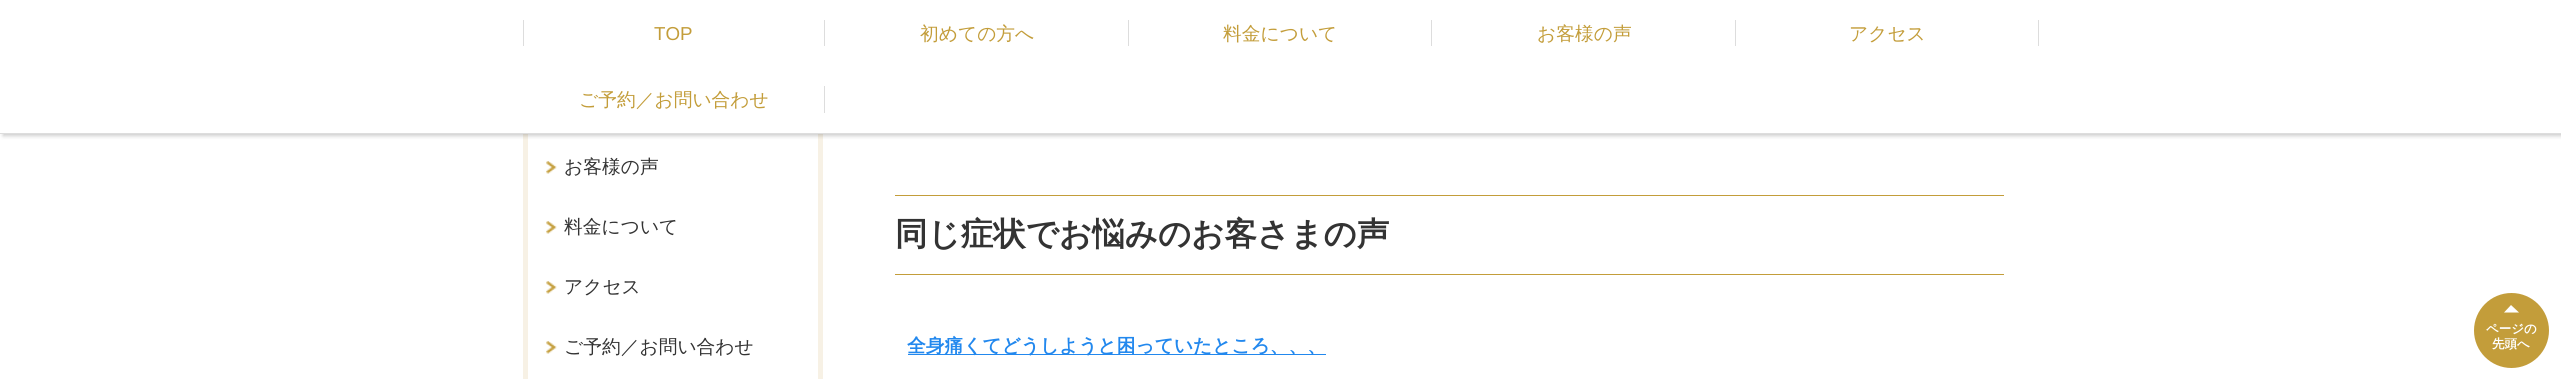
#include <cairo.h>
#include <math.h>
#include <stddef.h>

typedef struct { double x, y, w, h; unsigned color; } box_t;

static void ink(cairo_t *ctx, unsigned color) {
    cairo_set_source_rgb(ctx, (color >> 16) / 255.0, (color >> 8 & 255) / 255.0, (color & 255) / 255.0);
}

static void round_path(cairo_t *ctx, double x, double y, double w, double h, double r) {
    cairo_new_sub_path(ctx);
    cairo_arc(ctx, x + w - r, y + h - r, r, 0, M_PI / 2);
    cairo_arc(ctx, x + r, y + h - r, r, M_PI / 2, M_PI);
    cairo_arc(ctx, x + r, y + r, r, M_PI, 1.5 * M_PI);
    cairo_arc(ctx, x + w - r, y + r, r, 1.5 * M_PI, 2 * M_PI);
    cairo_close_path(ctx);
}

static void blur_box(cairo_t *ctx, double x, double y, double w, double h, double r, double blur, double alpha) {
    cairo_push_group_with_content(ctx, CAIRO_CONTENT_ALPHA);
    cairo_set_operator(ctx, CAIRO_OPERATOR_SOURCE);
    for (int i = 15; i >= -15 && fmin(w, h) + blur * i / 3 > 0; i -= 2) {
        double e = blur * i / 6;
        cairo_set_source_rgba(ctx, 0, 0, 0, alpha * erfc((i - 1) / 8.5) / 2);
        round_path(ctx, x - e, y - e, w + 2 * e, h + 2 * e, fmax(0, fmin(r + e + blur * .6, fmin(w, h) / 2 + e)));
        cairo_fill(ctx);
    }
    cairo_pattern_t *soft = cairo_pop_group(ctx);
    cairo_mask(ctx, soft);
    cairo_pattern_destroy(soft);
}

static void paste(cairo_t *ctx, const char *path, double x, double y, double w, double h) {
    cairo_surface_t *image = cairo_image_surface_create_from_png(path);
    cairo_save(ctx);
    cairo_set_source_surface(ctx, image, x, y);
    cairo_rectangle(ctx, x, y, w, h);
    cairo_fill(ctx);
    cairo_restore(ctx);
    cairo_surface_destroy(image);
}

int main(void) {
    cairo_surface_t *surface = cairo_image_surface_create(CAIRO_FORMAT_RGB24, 2561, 379);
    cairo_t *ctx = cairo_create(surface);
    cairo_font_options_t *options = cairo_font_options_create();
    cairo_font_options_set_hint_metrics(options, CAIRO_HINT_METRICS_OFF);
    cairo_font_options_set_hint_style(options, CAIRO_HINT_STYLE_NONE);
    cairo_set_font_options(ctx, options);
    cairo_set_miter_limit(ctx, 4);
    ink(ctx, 0xFFFFFF);
    cairo_paint(ctx);
    ink(ctx, 0xF7F1E5);
    cairo_rectangle(ctx, 523, 134, 300, 245);
    cairo_fill(ctx);
    ink(ctx, 0xFFFFFF);
    cairo_rectangle(ctx, 528, 134, 290, 245);
    cairo_fill(ctx);
    ink(ctx, 0x000000);
    blur_box(ctx, 3, 3, 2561, 133, 0, 2, 0.2);
    {
        static const box_t items[] = {
            {0, 0, 2561, 133, 0xFFFFFF},
            {0, 133, 2561, 1, 0xDDDDDD},
            {523, 20, 1, 26, 0xDDDDDD},
        };
        for (size_t i = 0; i < sizeof items / sizeof *items; i++) {
            ink(ctx, items[i].color);
            cairo_rectangle(ctx, items[i].x, items[i].y, items[i].w, items[i].h);
            cairo_fill(ctx);
        }
    }
    cairo_select_font_face(ctx, "Liberation Sans", CAIRO_FONT_SLANT_NORMAL, CAIRO_FONT_WEIGHT_NORMAL);
    cairo_set_font_size(ctx, 18.75);
    ink(ctx, 0xC39D3A);
    cairo_move_to(ctx, 654, 40);
    cairo_show_text(ctx, "TOP");
    ink(ctx, 0xDDDDDD);
    cairo_rectangle(ctx, 824, 20, 1, 26);
    cairo_fill(ctx);
    cairo_select_font_face(ctx, "WenQuanYi Zen Hei Medium", CAIRO_FONT_SLANT_NORMAL, CAIRO_FONT_WEIGHT_NORMAL);
    ink(ctx, 0xC39D3A);
    cairo_move_to(ctx, 920, 40);
    cairo_show_text(ctx, "初めての方へ");
    ink(ctx, 0xDDDDDD);
    cairo_rectangle(ctx, 1128, 20, 1, 26);
    cairo_fill(ctx);
    ink(ctx, 0xC39D3A);
    cairo_move_to(ctx, 1223, 40);
    cairo_show_text(ctx, "料金について");
    ink(ctx, 0xDDDDDD);
    cairo_rectangle(ctx, 1431, 20, 1, 26);
    cairo_fill(ctx);
    ink(ctx, 0xC39D3A);
    cairo_move_to(ctx, 1537, 40);
    cairo_show_text(ctx, "お客様の声");
    ink(ctx, 0xDDDDDD);
    cairo_rectangle(ctx, 1735, 20, 1, 26);
    cairo_fill(ctx);
    ink(ctx, 0xC39D3A);
    cairo_move_to(ctx, 1849, 40);
    cairo_show_text(ctx, "アクセス");
    ink(ctx, 0xDDDDDD);
    cairo_rectangle(ctx, 2038, 20, 1, 26);
    cairo_fill(ctx);
    ink(ctx, 0xC39D3A);
    cairo_move_to(ctx, 579, 106);
    cairo_show_text(ctx, "ご予約／お問い合わせ");
    ink(ctx, 0xDDDDDD);
    cairo_rectangle(ctx, 824, 86, 1, 27);
    cairo_fill(ctx);
    paste(ctx, "media/1.png", 546, 161, 11, 13);
    ink(ctx, 0x333333);
    cairo_move_to(ctx, 564, 173);
    cairo_show_text(ctx, "お客様の声");
    paste(ctx, "media/1.png", 546, 221, 11, 13);
    cairo_move_to(ctx, 564, 233);
    cairo_show_text(ctx, "料金について");
    paste(ctx, "media/1.png", 546, 281, 11, 13);
    cairo_move_to(ctx, 564, 293);
    cairo_show_text(ctx, "アクセス");
    paste(ctx, "media/1.png", 546, 341, 11, 13);
    cairo_move_to(ctx, 564, 353);
    cairo_show_text(ctx, "ご予約／お問い合わせ");
    ink(ctx, 0xC39D3A);
    cairo_rectangle(ctx, 895, 195, 1109, 1);
    cairo_fill(ctx);
    cairo_rectangle(ctx, 895, 274, 1109, 1);
    cairo_fill(ctx);
    cairo_select_font_face(ctx, "WenQuanYi Zen Hei", CAIRO_FONT_SLANT_NORMAL, CAIRO_FONT_WEIGHT_BOLD);
    cairo_set_font_size(ctx, 32.5);
    ink(ctx, 0x333333);
    cairo_move_to(ctx, 895, 245);
    cairo_show_text(ctx, "同じ症状でお悩みのお客さまの声");
    ink(ctx, 0x2288EE);
    cairo_rectangle(ctx, 908, 354, 418, 1);
    cairo_fill(ctx);
    cairo_set_font_size(ctx, 18.75);
    cairo_move_to(ctx, 907, 352);
    cairo_show_text(ctx, "全身痛くてどうしようと困っていたところ、、、");
    ink(ctx, 0xC39D3A);
    cairo_new_path(ctx);
    cairo_arc(ctx, 2511.5, 330.5, 37.5, 0, 2 * M_PI);
    cairo_fill(ctx);
    ink(ctx, 0xFFFFFF);
    cairo_new_path(ctx);
    cairo_move_to(ctx, 2519, 312.5);
    cairo_line_to(ctx, 2504, 312.5);
    cairo_line_to(ctx, 2511, 305);
    cairo_close_path(ctx);
    cairo_fill(ctx);
    cairo_set_font_size(ctx, 12.5);
    cairo_move_to(ctx, 2486, 333);
    cairo_show_text(ctx, "ページの");
    cairo_move_to(ctx, 2492, 348);
    cairo_show_text(ctx, "先頭へ");
    cairo_surface_write_to_png(surface, "image.png");
    cairo_font_options_destroy(options);
    cairo_destroy(ctx);
    cairo_surface_destroy(surface);
    return 0;
}
